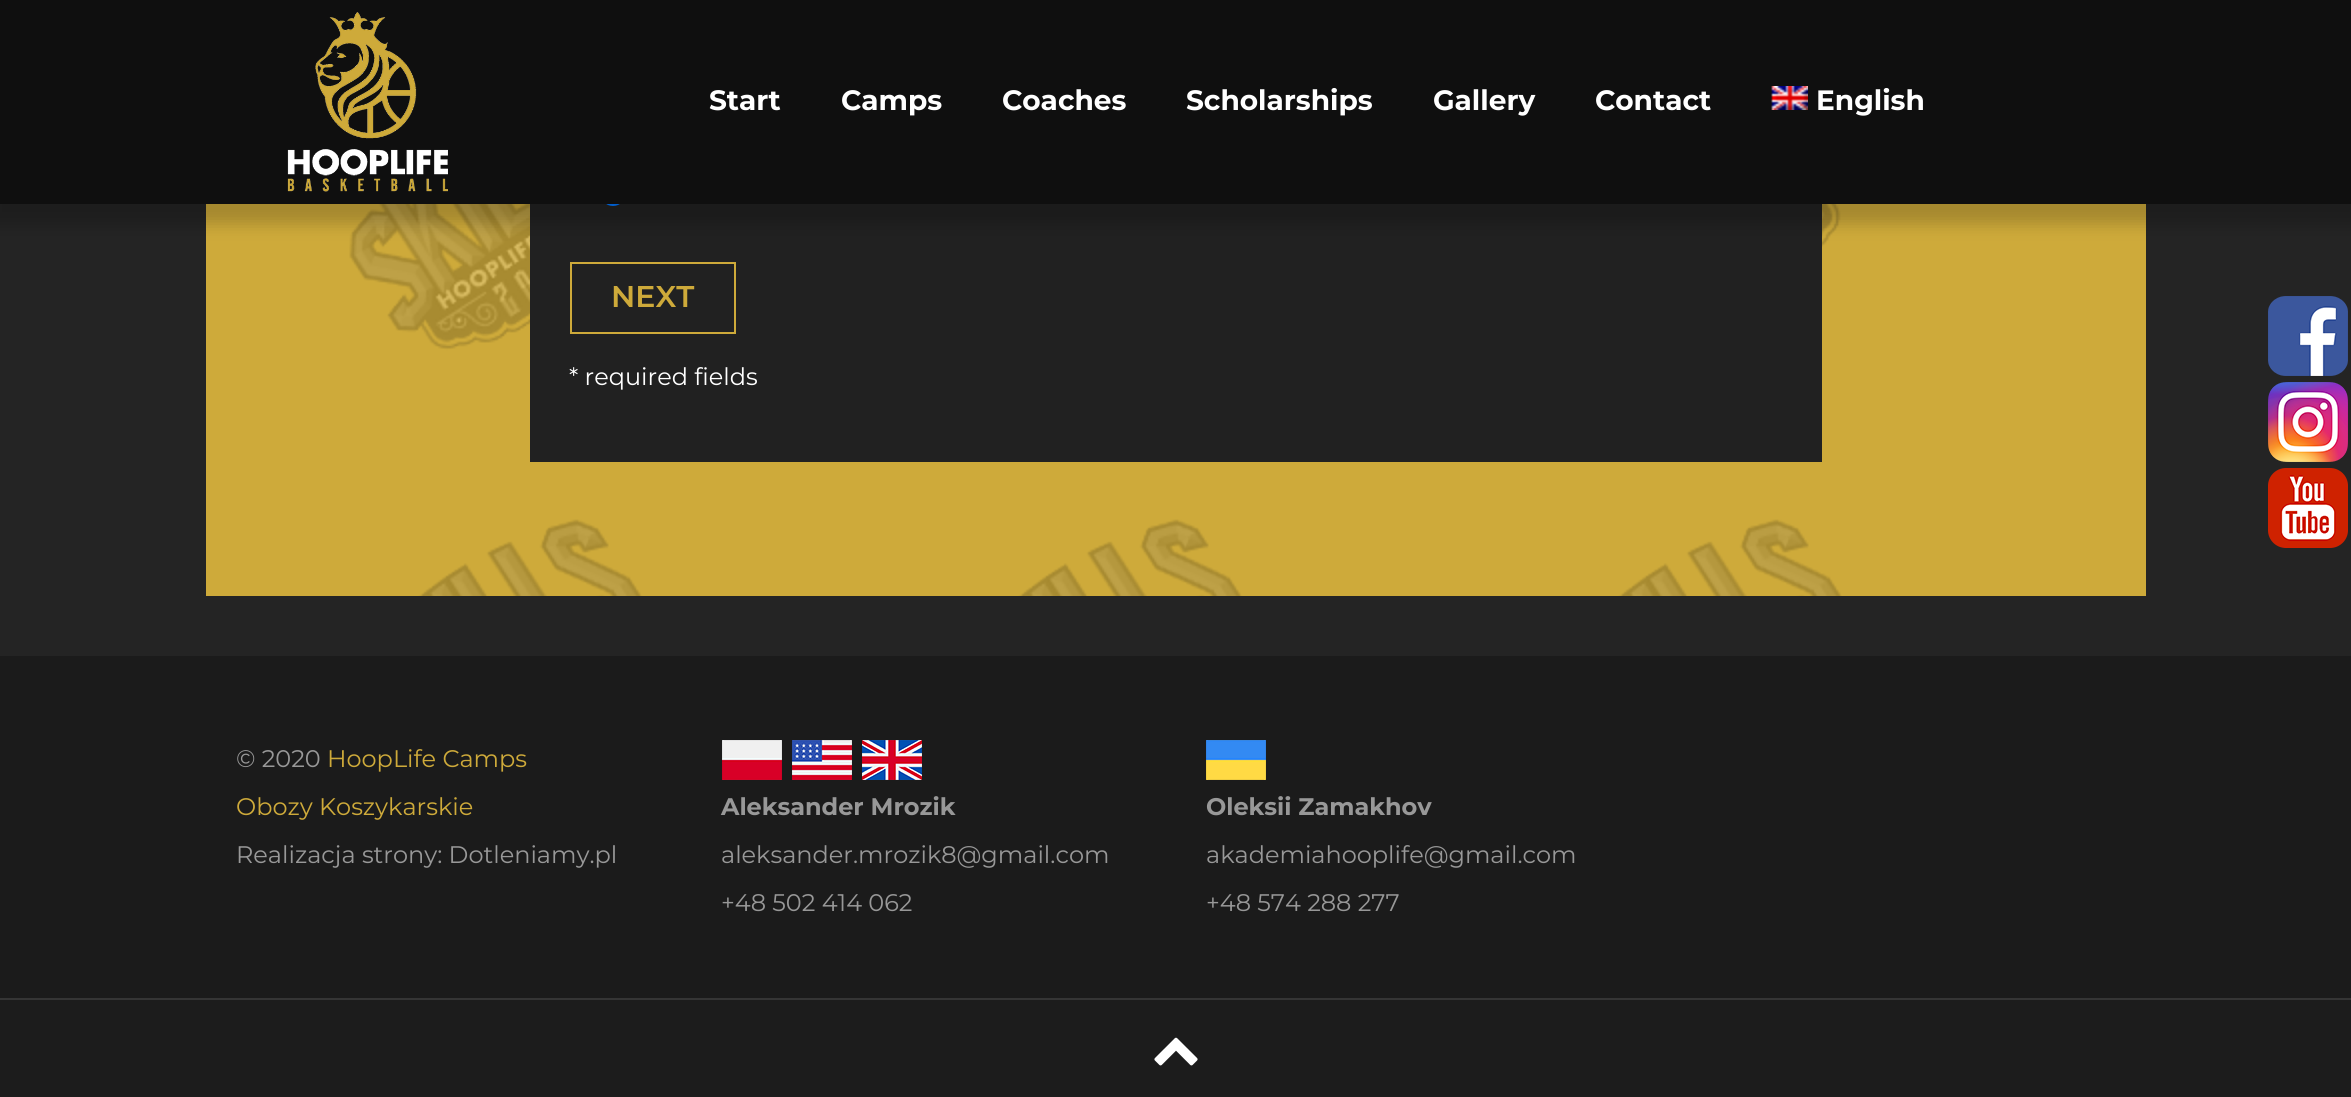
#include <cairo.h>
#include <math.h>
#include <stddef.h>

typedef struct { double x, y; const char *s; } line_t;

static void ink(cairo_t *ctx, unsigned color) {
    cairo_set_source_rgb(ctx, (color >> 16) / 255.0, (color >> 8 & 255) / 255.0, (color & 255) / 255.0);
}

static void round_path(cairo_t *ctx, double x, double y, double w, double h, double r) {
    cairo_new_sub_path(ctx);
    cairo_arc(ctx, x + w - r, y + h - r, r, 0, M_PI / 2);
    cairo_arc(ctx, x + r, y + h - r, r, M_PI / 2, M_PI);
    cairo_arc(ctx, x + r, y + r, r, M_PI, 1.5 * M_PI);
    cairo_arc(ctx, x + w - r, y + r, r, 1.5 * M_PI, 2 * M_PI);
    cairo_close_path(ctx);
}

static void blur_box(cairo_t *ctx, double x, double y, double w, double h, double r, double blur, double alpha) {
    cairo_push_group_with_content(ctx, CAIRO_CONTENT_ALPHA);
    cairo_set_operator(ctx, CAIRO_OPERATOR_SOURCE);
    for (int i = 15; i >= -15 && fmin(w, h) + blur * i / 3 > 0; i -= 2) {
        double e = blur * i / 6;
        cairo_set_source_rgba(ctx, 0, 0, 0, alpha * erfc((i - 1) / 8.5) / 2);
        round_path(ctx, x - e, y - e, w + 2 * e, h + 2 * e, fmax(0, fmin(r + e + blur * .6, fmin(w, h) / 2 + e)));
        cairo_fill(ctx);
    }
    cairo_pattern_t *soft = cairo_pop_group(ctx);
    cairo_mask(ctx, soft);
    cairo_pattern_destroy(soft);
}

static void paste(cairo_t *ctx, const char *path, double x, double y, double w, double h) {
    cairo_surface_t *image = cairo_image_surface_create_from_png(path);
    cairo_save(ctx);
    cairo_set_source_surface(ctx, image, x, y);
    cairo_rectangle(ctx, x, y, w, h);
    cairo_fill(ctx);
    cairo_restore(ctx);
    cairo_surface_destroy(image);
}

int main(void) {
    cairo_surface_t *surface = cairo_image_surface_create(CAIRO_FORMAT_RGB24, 2351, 1097);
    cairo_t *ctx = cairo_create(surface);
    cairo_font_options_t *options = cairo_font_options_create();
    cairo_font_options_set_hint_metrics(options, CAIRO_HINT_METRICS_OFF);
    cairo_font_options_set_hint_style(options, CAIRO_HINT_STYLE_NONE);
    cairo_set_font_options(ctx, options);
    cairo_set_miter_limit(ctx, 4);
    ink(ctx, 0x242424);
    cairo_paint(ctx);
    ink(ctx, 0xCEAA3A);
    cairo_rectangle(ctx, 206, 204, 1940, 392);
    cairo_fill(ctx);
    paste(ctx, "media/3.png", 349, 204, 1493, 392);
    ink(ctx, 0x212121);
    cairo_rectangle(ctx, 530, 204, 1292, 258);
    cairo_fill(ctx);
    cairo_arc(ctx, 613, 193, 12, 0, 2 * M_PI);
    ink(ctx, 0x0075FF);
    cairo_stroke(ctx);
    ink(ctx, 0x000000);
    blur_box(ctx, -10, 0, 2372, 224, 0, 8, 0.2);
    ink(ctx, 0x0F0F0F);
    cairo_rectangle(ctx, 0, 0, 2351, 204);
    cairo_fill(ctx);
    paste(ctx, "media/1.png", 287, 12, 161, 180);
    cairo_select_font_face(ctx, "Montserrat", CAIRO_FONT_SLANT_NORMAL, CAIRO_FONT_WEIGHT_BOLD);
    cairo_set_font_size(ctx, 28);
    ink(ctx, 0xFFFFFF);
    {
        static const line_t items[] = {
            {709, 110, "Start"},
            {841, 110, "Camps"},
            {1002, 110, "Coaches"},
            {1186, 110, "Scholarships"},
            {1433, 110, "Gallery"},
            {1595, 110, "Contact"},
        };
        for (size_t i = 0; i < sizeof items / sizeof *items; i++) {
            cairo_move_to(ctx, items[i].x, items[i].y);
            cairo_show_text(ctx, items[i].s);
        }
    }
    paste(ctx, "media/2.png", 1771, 86, 37, 24);
    cairo_move_to(ctx, 1816, 110);
    cairo_show_text(ctx, "English");
    cairo_rectangle(ctx, 571, 263, 164, 70);
    ink(ctx, 0xCEAA3A);
    cairo_stroke(ctx);
    cairo_select_font_face(ctx, "Montserrat SemiBold", CAIRO_FONT_SLANT_NORMAL, CAIRO_FONT_WEIGHT_NORMAL);
    cairo_set_font_size(ctx, 30);
    cairo_move_to(ctx, 611, 307);
    cairo_show_text(ctx, "NEXT");
    cairo_select_font_face(ctx, "Montserrat", CAIRO_FONT_SLANT_NORMAL, CAIRO_FONT_WEIGHT_NORMAL);
    cairo_set_font_size(ctx, 24);
    ink(ctx, 0xFFFFFF);
    cairo_move_to(ctx, 569, 385);
    cairo_show_text(ctx, "* required fields");
    ink(ctx, 0x1B1B1B);
    cairo_rectangle(ctx, 0, 656, 2351, 342);
    cairo_fill(ctx);
    ink(ctx, 0x989898);
    cairo_move_to(ctx, 236, 767);
    cairo_show_text(ctx, "© 2020");
    ink(ctx, 0xCEAA3A);
    cairo_move_to(ctx, 327, 767);
    cairo_show_text(ctx, "HoopLife Camps");
    cairo_move_to(ctx, 236, 815);
    cairo_show_text(ctx, "Obozy Koszykarskie");
    ink(ctx, 0x989898);
    cairo_move_to(ctx, 236, 863);
    cairo_show_text(ctx, "Realizacja strony: Dotleniamy.pl");
    paste(ctx, "media/4.png", 722, 740, 60, 40);
    paste(ctx, "media/5.png", 792, 740, 60, 40);
    paste(ctx, "media/6.png", 862, 740, 60, 40);
    cairo_select_font_face(ctx, "Montserrat", CAIRO_FONT_SLANT_NORMAL, CAIRO_FONT_WEIGHT_BOLD);
    cairo_move_to(ctx, 721, 815);
    cairo_show_text(ctx, "Aleksander Mrozik");
    cairo_select_font_face(ctx, "Montserrat", CAIRO_FONT_SLANT_NORMAL, CAIRO_FONT_WEIGHT_NORMAL);
    cairo_move_to(ctx, 721, 863);
    cairo_show_text(ctx, "aleksander.mrozik8@gmail.com");
    cairo_move_to(ctx, 721, 911);
    cairo_show_text(ctx, "+48 502 414 062");
    paste(ctx, "media/7.png", 1206, 740, 60, 40);
    cairo_select_font_face(ctx, "Montserrat", CAIRO_FONT_SLANT_NORMAL, CAIRO_FONT_WEIGHT_BOLD);
    cairo_move_to(ctx, 1206, 815);
    cairo_show_text(ctx, "Oleksii Zamakhov");
    cairo_select_font_face(ctx, "Montserrat", CAIRO_FONT_SLANT_NORMAL, CAIRO_FONT_WEIGHT_NORMAL);
    cairo_move_to(ctx, 1206, 863);
    cairo_show_text(ctx, "akademiahooplife@gmail.com");
    cairo_move_to(ctx, 1206, 911);
    cairo_show_text(ctx, "+48 574 288 277");
    ink(ctx, 0x1C1C1C);
    cairo_rectangle(ctx, 0, 1000, 2351, 97);
    cairo_fill(ctx);
    ink(ctx, 0x353535);
    cairo_rectangle(ctx, 0, 998, 2351, 2);
    cairo_fill(ctx);
    paste(ctx, "media/8.png", 1154, 1037, 44, 29);
    paste(ctx, "media/9.png", 2268, 296, 80, 80);
    paste(ctx, "media/10.png", 2268, 382, 80, 80);
    paste(ctx, "media/11.png", 2268, 468, 80, 80);
    cairo_surface_write_to_png(surface, "image.png");
    cairo_font_options_destroy(options);
    cairo_destroy(ctx);
    cairo_surface_destroy(surface);
    return 0;
}
